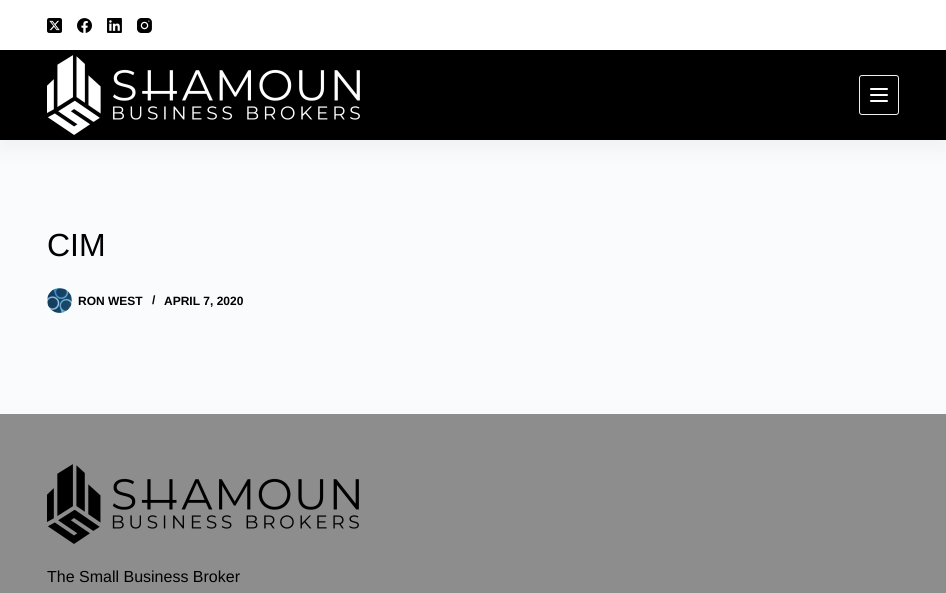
#include <cairo.h>
#include <math.h>
#include <stddef.h>

typedef struct { double x, y; const char *s; } line_t;

static void ink(cairo_t *ctx, unsigned color) {
    cairo_set_source_rgb(ctx, (color >> 16) / 255.0, (color >> 8 & 255) / 255.0, (color & 255) / 255.0);
}

static void round_path(cairo_t *ctx, double x, double y, double w, double h, double r) {
    cairo_new_sub_path(ctx);
    cairo_arc(ctx, x + w - r, y + h - r, r, 0, M_PI / 2);
    cairo_arc(ctx, x + r, y + h - r, r, M_PI / 2, M_PI);
    cairo_arc(ctx, x + r, y + r, r, M_PI, 1.5 * M_PI);
    cairo_arc(ctx, x + w - r, y + r, r, 1.5 * M_PI, 2 * M_PI);
    cairo_close_path(ctx);
}

static void blur_box(cairo_t *ctx, double x, double y, double w, double h, double r, double blur, double alpha) {
    cairo_push_group_with_content(ctx, CAIRO_CONTENT_ALPHA);
    cairo_set_operator(ctx, CAIRO_OPERATOR_SOURCE);
    for (int i = 15; i >= -15 && fmin(w, h) + blur * i / 3 > 0; i -= 2) {
        double e = blur * i / 6;
        cairo_set_source_rgba(ctx, 0, 0, 0, alpha * erfc((i - 1) / 8.5) / 2);
        round_path(ctx, x - e, y - e, w + 2 * e, h + 2 * e, fmax(0, fmin(r + e + blur * .6, fmin(w, h) / 2 + e)));
        cairo_fill(ctx);
    }
    cairo_pattern_t *soft = cairo_pop_group(ctx);
    cairo_mask(ctx, soft);
    cairo_pattern_destroy(soft);
}

static void paste(cairo_t *ctx, const char *path, double x, double y, double w, double h) {
    cairo_surface_t *image = cairo_image_surface_create_from_png(path);
    cairo_save(ctx);
    cairo_set_source_surface(ctx, image, x, y);
    cairo_rectangle(ctx, x, y, w, h);
    cairo_fill(ctx);
    cairo_restore(ctx);
    cairo_surface_destroy(image);
}

int main(void) {
    cairo_surface_t *surface = cairo_image_surface_create(CAIRO_FORMAT_RGB24, 946, 593);
    cairo_t *ctx = cairo_create(surface);
    cairo_font_options_t *options = cairo_font_options_create();
    cairo_font_options_set_hint_metrics(options, CAIRO_HINT_METRICS_OFF);
    cairo_font_options_set_hint_style(options, CAIRO_HINT_STYLE_NONE);
    cairo_set_font_options(ctx, options);
    cairo_set_miter_limit(ctx, 4);
    ink(ctx, 0xFAFBFC);
    cairo_paint(ctx);
    ink(ctx, 0x2C3E50);
    blur_box(ctx, 0, 60, 946, 90, 0, 10, 0.05);
    ink(ctx, 0xFFFFFF);
    cairo_rectangle(ctx, 0, 0, 946, 50);
    cairo_fill(ctx);
    paste(ctx, "media/1.png", 47, 18, 15, 15);
    paste(ctx, "media/2.png", 77, 18, 15, 15);
    paste(ctx, "media/3.png", 107, 18, 15, 15);
    paste(ctx, "media/4.png", 137, 18, 15, 15);
    ink(ctx, 0x000000);
    cairo_rectangle(ctx, 0, 50, 946, 90);
    cairo_fill(ctx);
    paste(ctx, "media/5.png", 47, 55, 313, 80);
    round_path(ctx, 859.5, 75.5, 39, 39, 2.5);
    ink(ctx, 0xEEEEEE);
    cairo_set_line_width(ctx, 1);
    cairo_stroke(ctx);
    ink(ctx, 0xFFFFFF);
    round_path(ctx, 870, 88, 18, 2, 1);
    cairo_fill(ctx);
    round_path(ctx, 870, 94, 18, 2, 1);
    cairo_fill(ctx);
    round_path(ctx, 870, 100, 18, 2, 1);
    cairo_fill(ctx);
    cairo_select_font_face(ctx, "Liberation Sans", CAIRO_FONT_SLANT_NORMAL, CAIRO_FONT_WEIGHT_NORMAL);
    cairo_set_font_size(ctx, 32);
    ink(ctx, 0x000000);
    cairo_move_to(ctx, 47, 256);
    cairo_show_text(ctx, "CIM");
    paste(ctx, "media/6.png", 47, 288, 25, 25);
    cairo_select_font_face(ctx, "Liberation Sans", CAIRO_FONT_SLANT_NORMAL, CAIRO_FONT_WEIGHT_BOLD);
    cairo_set_font_size(ctx, 12);
    {
        static const line_t items[] = {
            {78, 305, "RON WEST"},
            {152, 304, "/"},
            {164, 305, "APRIL 7, 2020"},
        };
        for (size_t i = 0; i < sizeof items / sizeof *items; i++) {
            cairo_move_to(ctx, items[i].x, items[i].y);
            cairo_show_text(ctx, items[i].s);
        }
    }
    ink(ctx, 0x8D8D8D);
    cairo_rectangle(ctx, 0, 414, 946, 179);
    cairo_fill(ctx);
    paste(ctx, "media/7.png", 47, 464, 312, 80);
    cairo_select_font_face(ctx, "Liberation Sans", CAIRO_FONT_SLANT_NORMAL, CAIRO_FONT_WEIGHT_NORMAL);
    cairo_set_font_size(ctx, 16);
    ink(ctx, 0x000000);
    cairo_move_to(ctx, 47, 582);
    cairo_show_text(ctx, "The Small Business Broker");
    cairo_surface_write_to_png(surface, "image.png");
    cairo_font_options_destroy(options);
    cairo_destroy(ctx);
    cairo_surface_destroy(surface);
    return 0;
}
